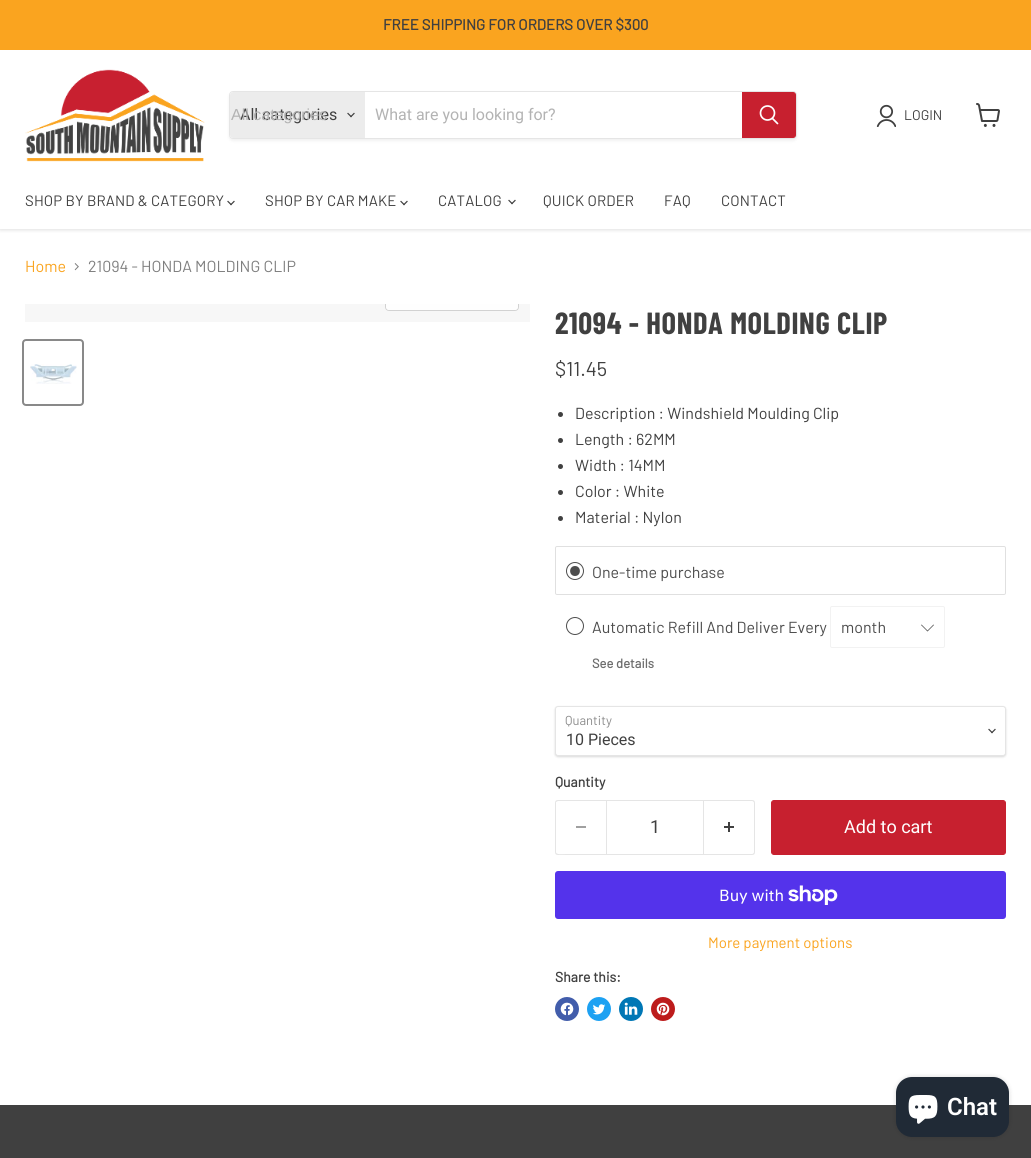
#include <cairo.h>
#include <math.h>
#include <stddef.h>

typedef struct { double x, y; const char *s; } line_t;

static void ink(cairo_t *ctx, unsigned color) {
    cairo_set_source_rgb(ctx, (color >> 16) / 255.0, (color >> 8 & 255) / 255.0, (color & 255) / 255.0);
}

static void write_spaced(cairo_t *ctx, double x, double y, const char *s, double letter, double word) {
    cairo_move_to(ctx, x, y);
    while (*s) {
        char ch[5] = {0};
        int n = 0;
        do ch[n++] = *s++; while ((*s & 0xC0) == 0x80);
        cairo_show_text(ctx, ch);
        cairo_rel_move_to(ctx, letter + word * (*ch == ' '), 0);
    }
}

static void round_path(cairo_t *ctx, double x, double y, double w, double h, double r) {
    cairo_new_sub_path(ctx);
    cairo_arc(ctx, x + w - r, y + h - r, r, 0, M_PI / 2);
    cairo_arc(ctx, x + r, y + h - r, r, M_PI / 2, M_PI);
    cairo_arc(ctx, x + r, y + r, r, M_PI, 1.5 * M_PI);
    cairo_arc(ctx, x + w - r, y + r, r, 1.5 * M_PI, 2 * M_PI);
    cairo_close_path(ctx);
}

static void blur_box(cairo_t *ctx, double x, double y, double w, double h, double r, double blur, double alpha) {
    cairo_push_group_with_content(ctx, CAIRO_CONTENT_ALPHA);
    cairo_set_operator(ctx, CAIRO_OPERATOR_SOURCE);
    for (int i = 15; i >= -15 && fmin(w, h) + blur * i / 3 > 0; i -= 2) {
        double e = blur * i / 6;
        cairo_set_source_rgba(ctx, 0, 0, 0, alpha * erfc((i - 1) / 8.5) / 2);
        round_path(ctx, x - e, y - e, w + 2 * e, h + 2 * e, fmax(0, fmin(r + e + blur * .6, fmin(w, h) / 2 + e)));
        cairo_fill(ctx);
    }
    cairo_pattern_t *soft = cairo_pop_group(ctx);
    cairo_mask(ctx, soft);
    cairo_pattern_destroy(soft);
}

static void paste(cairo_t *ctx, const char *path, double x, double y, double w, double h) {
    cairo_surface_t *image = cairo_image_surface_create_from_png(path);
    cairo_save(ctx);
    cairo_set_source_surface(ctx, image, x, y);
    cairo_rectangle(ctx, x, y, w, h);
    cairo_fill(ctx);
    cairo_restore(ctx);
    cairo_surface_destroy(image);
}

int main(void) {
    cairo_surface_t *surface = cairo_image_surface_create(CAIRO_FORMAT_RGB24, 1031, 1158);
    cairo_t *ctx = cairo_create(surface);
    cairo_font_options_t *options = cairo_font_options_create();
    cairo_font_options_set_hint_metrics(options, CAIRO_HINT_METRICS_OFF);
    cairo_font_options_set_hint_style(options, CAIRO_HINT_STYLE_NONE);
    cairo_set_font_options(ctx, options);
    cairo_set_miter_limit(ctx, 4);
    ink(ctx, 0xFFFFFF);
    cairo_paint(ctx);
    cairo_save(ctx);
    cairo_rectangle(ctx, 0, 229, 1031, 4);
    cairo_clip(ctx);
    ink(ctx, 0x808080);
    blur_box(ctx, 0, 51, 1031, 179, 0, 2, 0.25);
    cairo_restore(ctx);
    ink(ctx, 0xFAA41F);
    cairo_rectangle(ctx, 0, 0, 1031, 50);
    cairo_fill(ctx);
    cairo_select_font_face(ctx, "Barlow", CAIRO_FONT_SLANT_NORMAL, CAIRO_FONT_WEIGHT_BOLD);
    cairo_set_font_size(ctx, 15);
    ink(ctx, 0x404040);
    cairo_move_to(ctx, 383, 30);
    cairo_show_text(ctx, "FREE SHIPPING FOR ORDERS OVER $300");
    paste(ctx, "media/1.png", 25, 69, 180, 93);
    cairo_save(ctx);
    cairo_set_fill_rule(ctx, CAIRO_FILL_RULE_EVEN_ODD);
    cairo_new_path(ctx);
    cairo_move_to(ctx, 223, 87);
    cairo_line_to(ctx, 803, 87);
    cairo_line_to(ctx, 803, 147);
    cairo_line_to(ctx, 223, 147);
    cairo_close_path(ctx);
    cairo_move_to(ctx, 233, 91);
    cairo_line_to(ctx, 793, 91);
    cairo_curve_to(ctx, 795, 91, 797, 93, 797, 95);
    cairo_line_to(ctx, 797, 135);
    cairo_curve_to(ctx, 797, 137, 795, 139, 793, 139);
    cairo_line_to(ctx, 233, 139);
    cairo_curve_to(ctx, 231, 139, 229, 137, 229, 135);
    cairo_line_to(ctx, 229, 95);
    cairo_curve_to(ctx, 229, 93, 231, 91, 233, 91);
    cairo_close_path(ctx);
    cairo_clip(ctx);
    ink(ctx, 0x808080);
    blur_box(ctx, 229, 93, 568, 48, 4, 1.5, 0.11);
    cairo_restore(ctx);
    round_path(ctx, 229.5, 91.5, 567, 47, 3.5);
    cairo_set_source_rgba(ctx, 0.502, 0.502, 0.502, 0.2);
    cairo_set_line_width(ctx, 1);
    cairo_stroke(ctx);
    ink(ctx, 0xECECEC);
    cairo_new_path(ctx);
    cairo_move_to(ctx, 233, 92);
    cairo_line_to(ctx, 365, 92);
    cairo_line_to(ctx, 365, 138);
    cairo_line_to(ctx, 233, 138);
    cairo_curve_to(ctx, 231.5, 138, 230, 136.5, 230, 135);
    cairo_line_to(ctx, 230, 95);
    cairo_curve_to(ctx, 230, 93.5, 231.5, 92, 233, 92);
    cairo_close_path(ctx);
    cairo_fill(ctx);
    cairo_select_font_face(ctx, "Roboto", CAIRO_FONT_SLANT_NORMAL, CAIRO_FONT_WEIGHT_NORMAL);
    cairo_set_font_size(ctx, 16);
    ink(ctx, 0x404040);
    cairo_move_to(ctx, 240, 120);
    cairo_show_text(ctx, "All categories");
    cairo_select_font_face(ctx, "Liberation Sans", CAIRO_FONT_SLANT_NORMAL, CAIRO_FONT_WEIGHT_NORMAL);
    ink(ctx, 0xB3B3B3);
    cairo_move_to(ctx, 231, 120);
    cairo_show_text(ctx, "All categories");
    paste(ctx, "media/2.png", 347, 112, 8, 6);
    cairo_select_font_face(ctx, "Roboto", CAIRO_FONT_SLANT_NORMAL, CAIRO_FONT_WEIGHT_NORMAL);
    cairo_move_to(ctx, 375, 120);
    cairo_show_text(ctx, "What are you looking for?");
    ink(ctx, 0xC7202F);
    cairo_new_path(ctx);
    cairo_move_to(ctx, 742.5, 92.5);
    cairo_line_to(ctx, 793, 92.5);
    cairo_curve_to(ctx, 794.5, 92.5, 795.5, 93.5, 795.5, 95);
    cairo_line_to(ctx, 795.5, 135);
    cairo_curve_to(ctx, 795.5, 136.5, 794.5, 137.5, 793, 137.5);
    cairo_line_to(ctx, 742.5, 137.5);
    cairo_close_path(ctx);
    cairo_fill_preserve(ctx);
    cairo_stroke(ctx);
    cairo_new_path(ctx);
    cairo_move_to(ctx, 777.5, 123.5);
    cairo_line_to(ctx, 772.5, 118.5);
    ink(ctx, 0xFFFFFF);
    cairo_set_line_width(ctx, 1.7);
    cairo_set_line_cap(ctx, CAIRO_LINE_CAP_ROUND);
    cairo_stroke(ctx);
    cairo_arc(ctx, 767.5, 113, 7, 0, 2 * M_PI);
    cairo_set_line_cap(ctx, CAIRO_LINE_CAP_BUTT);
    cairo_stroke(ctx);
    paste(ctx, "media/3.png", 876, 104, 20, 23);
    cairo_select_font_face(ctx, "Barlow", CAIRO_FONT_SLANT_NORMAL, CAIRO_FONT_WEIGHT_NORMAL);
    cairo_set_font_size(ctx, 14);
    ink(ctx, 0x404040);
    cairo_move_to(ctx, 904, 120);
    cairo_show_text(ctx, "LOGIN");
    paste(ctx, "media/4.png", 976, 103, 24, 24);
    cairo_set_font_size(ctx, 15);
    write_spaced(ctx, 25, 206, "SHOP BY BRAND & CATEGORY", 0.15, 0);
    paste(ctx, "media/5.png", 227, 200, 8, 6);
    write_spaced(ctx, 265, 206, "SHOP BY CAR MAKE", 0.15, 0);
    paste(ctx, "media/5.png", 400, 200, 8, 6);
    write_spaced(ctx, 438, 206, "CATALOG", 0.15, 0);
    paste(ctx, "media/5.png", 508, 199, 8, 6);
    {
        static const line_t items[] = {
            {543, 206, "QUICK ORDER"},
            {664, 206, "FAQ"},
            {721, 206, "CONTACT"},
        };
        for (size_t i = 0; i < sizeof items / sizeof *items; i++) {
            write_spaced(ctx, items[i].x, items[i].y, items[i].s, 0.15, 0);
        }
    }
    cairo_set_font_size(ctx, 16);
    ink(ctx, 0xFAA41F);
    cairo_move_to(ctx, 25, 272);
    cairo_show_text(ctx, "Home");
    paste(ctx, "media/6.png", 74, 263, 5, 8);
    ink(ctx, 0x7F7F7F);
    cairo_move_to(ctx, 88, 272);
    cairo_show_text(ctx, "21094 - HONDA MOLDING CLIP");
    ink(ctx, 0xF7F7F7);
    cairo_rectangle(ctx, 25, 304, 505, 18);
    cairo_fill(ctx);
    cairo_save(ctx);
    cairo_rectangle(ctx, 25, 304, 505, 18);
    cairo_clip(ctx);
    round_path(ctx, 385.5, 281.5, 133, 29, 3.5);
    ink(ctx, 0xD2D2D2);
    cairo_set_line_width(ctx, 1);
    cairo_stroke(ctx);
    cairo_restore(ctx);
    cairo_set_source_rgba(ctx, 1, 1, 1, 0.9);
    cairo_new_path(ctx);
    cairo_move_to(ctx, 386, 304);
    cairo_line_to(ctx, 518, 304);
    cairo_line_to(ctx, 518, 307);
    cairo_curve_to(ctx, 518, 308.5, 516.5, 310, 515, 310);
    cairo_line_to(ctx, 389, 310);
    cairo_curve_to(ctx, 387.5, 310, 386, 308.5, 386, 307);
    cairo_close_path(ctx);
    cairo_fill(ctx);
    round_path(ctx, 23, 340, 60, 65, 3);
    ink(ctx, 0x898989);
    cairo_set_line_width(ctx, 2);
    cairo_stroke(ctx);
    paste(ctx, "media/7.png", 30, 364, 47, 20);
    cairo_select_font_face(ctx, "Barlow Condensed", CAIRO_FONT_SLANT_NORMAL, CAIRO_FONT_WEIGHT_BOLD);
    cairo_set_font_size(ctx, 30.6);
    ink(ctx, 0x404040);
    write_spaced(ctx, 555, 334, "21094 - HONDA MOLDING CLIP", 0.6, 0);
    cairo_select_font_face(ctx, "Barlow", CAIRO_FONT_SLANT_NORMAL, CAIRO_FONT_WEIGHT_NORMAL);
    cairo_set_font_size(ctx, 20);
    cairo_move_to(ctx, 555, 376);
    cairo_show_text(ctx, "$11.45");
    cairo_new_path(ctx);
    cairo_arc(ctx, 560.5, 414.5, 2.5, 0, 2 * M_PI);
    cairo_fill(ctx);
    cairo_set_font_size(ctx, 16);
    cairo_move_to(ctx, 575, 419);
    cairo_show_text(ctx, "Description : Windshield Moulding Clip");
    cairo_new_path(ctx);
    cairo_arc(ctx, 560.5, 440.5, 2.5, 0, 2 * M_PI);
    cairo_fill(ctx);
    cairo_move_to(ctx, 575, 445);
    cairo_show_text(ctx, "Length : 62MM");
    cairo_new_path(ctx);
    cairo_arc(ctx, 560.5, 466.5, 2.5, 0, 2 * M_PI);
    cairo_fill(ctx);
    cairo_move_to(ctx, 575, 471);
    cairo_show_text(ctx, "Width : 14MM");
    cairo_new_path(ctx);
    cairo_arc(ctx, 560.5, 492.5, 2.5, 0, 2 * M_PI);
    cairo_fill(ctx);
    cairo_move_to(ctx, 575, 497);
    cairo_show_text(ctx, "Color : White");
    cairo_new_path(ctx);
    cairo_arc(ctx, 560.5, 518.5, 2.5, 0, 2 * M_PI);
    cairo_fill(ctx);
    cairo_move_to(ctx, 575, 523);
    cairo_show_text(ctx, "Material : Nylon");
    round_path(ctx, 555.5, 546.5, 450, 48, 1.5);
    ink(ctx, 0xE0E0E0);
    cairo_set_line_width(ctx, 1);
    cairo_stroke(ctx);
    cairo_arc(ctx, 575, 571, 8.5, 0, 2 * M_PI);
    ink(ctx, 0x4D4D4D);
    cairo_stroke(ctx);
    cairo_new_path(ctx);
    cairo_move_to(ctx, 575, 566);
    cairo_curve_to(ctx, 568.5, 566, 568.5, 576, 575, 576);
    cairo_curve_to(ctx, 581.5, 576, 581.5, 566, 575, 566);
    cairo_close_path(ctx);
    cairo_fill(ctx);
    cairo_move_to(ctx, 592, 578);
    cairo_show_text(ctx, "One-time purchase");
    cairo_new_path(ctx);
    cairo_arc(ctx, 575, 626, 8.5, 0, 2 * M_PI);
    cairo_stroke(ctx);
    cairo_move_to(ctx, 592, 633);
    cairo_show_text(ctx, "Automatic Refill And Deliver Every");
    cairo_new_path(ctx);
    cairo_move_to(ctx, 921.5, 625);
    cairo_line_to(ctx, 927.5, 631);
    cairo_line_to(ctx, 933.5, 625);
    ink(ctx, 0x585858);
    cairo_set_line_width(ctx, 0.8);
    cairo_set_line_cap(ctx, CAIRO_LINE_CAP_ROUND);
    cairo_stroke(ctx);
    round_path(ctx, 830.5, 606.5, 114, 41, 1.5);
    ink(ctx, 0xF2F2F2);
    cairo_set_line_width(ctx, 1);
    cairo_set_line_cap(ctx, CAIRO_LINE_CAP_BUTT);
    cairo_stroke(ctx);
    ink(ctx, 0x4D4D4D);
    cairo_move_to(ctx, 841, 633);
    cairo_show_text(ctx, "month");
    cairo_select_font_face(ctx, "Barlow", CAIRO_FONT_SLANT_NORMAL, CAIRO_FONT_WEIGHT_BOLD);
    cairo_set_font_size(ctx, 13);
    ink(ctx, 0x6D6D6D);
    cairo_move_to(ctx, 592, 668);
    cairo_show_text(ctx, "See details");
    ink(ctx, 0x000000);
    blur_box(ctx, 555, 707, 451, 50, 3, 1, 0.15);
    ink(ctx, 0xFFFFFF);
    round_path(ctx, 555.5, 706.5, 450, 49, 2.5);
    cairo_fill_preserve(ctx);
    ink(ctx, 0xE5E5E5);
    cairo_stroke(ctx);
    cairo_select_font_face(ctx, "Barlow", CAIRO_FONT_SLANT_NORMAL, CAIRO_FONT_WEIGHT_NORMAL);
    ink(ctx, 0x8C8C8C);
    cairo_move_to(ctx, 565, 725);
    cairo_show_text(ctx, "Quantity");
    paste(ctx, "media/5.png", 988, 728, 8, 6);
    cairo_select_font_face(ctx, "Roboto", CAIRO_FONT_SLANT_NORMAL, CAIRO_FONT_WEIGHT_NORMAL);
    cairo_set_font_size(ctx, 16);
    ink(ctx, 0x404040);
    cairo_move_to(ctx, 566, 745);
    cairo_show_text(ctx, "10 Pieces");
    cairo_select_font_face(ctx, "Barlow", CAIRO_FONT_SLANT_NORMAL, CAIRO_FONT_WEIGHT_BOLD);
    cairo_set_font_size(ctx, 14);
    cairo_move_to(ctx, 555, 787);
    cairo_show_text(ctx, "Quantity");
    ink(ctx, 0xE5E5E5);
    cairo_set_fill_rule(ctx, CAIRO_FILL_RULE_EVEN_ODD);
    cairo_new_path(ctx);
    cairo_move_to(ctx, 558, 800);
    cairo_line_to(ctx, 606, 800);
    cairo_line_to(ctx, 606, 855);
    cairo_line_to(ctx, 558, 855);
    cairo_curve_to(ctx, 556, 855, 555, 854, 555, 852);
    cairo_line_to(ctx, 555, 803);
    cairo_curve_to(ctx, 555, 801, 556, 800, 558, 800);
    cairo_close_path(ctx);
    cairo_move_to(ctx, 558, 801);
    cairo_line_to(ctx, 606, 801);
    cairo_line_to(ctx, 606, 854);
    cairo_line_to(ctx, 566, 854);
    cairo_curve_to(ctx, 562, 854, 556, 855, 556, 852);
    cairo_line_to(ctx, 556, 802);
    cairo_close_path(ctx);
    cairo_fill(ctx);
    ink(ctx, 0xA0A0A0);
    cairo_rectangle(ctx, 576, 826, 10, 2);
    cairo_fill(ctx);
    cairo_rectangle(ctx, 606.5, 800.5, 97, 54);
    ink(ctx, 0xE5E5E5);
    cairo_stroke(ctx);
    cairo_select_font_face(ctx, "Roboto", CAIRO_FONT_SLANT_NORMAL, CAIRO_FONT_WEIGHT_NORMAL);
    cairo_set_font_size(ctx, 18);
    ink(ctx, 0x404040);
    cairo_move_to(ctx, 650, 833);
    cairo_show_text(ctx, "1");
    ink(ctx, 0xE5E5E5);
    cairo_new_path(ctx);
    cairo_move_to(ctx, 704, 800);
    cairo_line_to(ctx, 752, 800);
    cairo_curve_to(ctx, 754, 800, 755, 801, 755, 803);
    cairo_line_to(ctx, 755, 852);
    cairo_curve_to(ctx, 755, 854, 754, 855, 752, 855);
    cairo_line_to(ctx, 704, 855);
    cairo_close_path(ctx);
    cairo_move_to(ctx, 704, 801);
    cairo_line_to(ctx, 752, 801);
    cairo_curve_to(ctx, 753, 801, 754, 802, 754, 803);
    cairo_line_to(ctx, 754, 852);
    cairo_curve_to(ctx, 754, 853, 753, 854, 752, 854);
    cairo_line_to(ctx, 704, 854);
    cairo_close_path(ctx);
    cairo_fill(ctx);
    paste(ctx, "media/8.png", 724, 822, 10, 10);
    ink(ctx, 0xC7202F);
    round_path(ctx, 771.5, 800.5, 234, 54, 2.5);
    cairo_fill_preserve(ctx);
    cairo_stroke(ctx);
    ink(ctx, 0xFFFFFF);
    cairo_move_to(ctx, 844, 833);
    cairo_show_text(ctx, "Add to cart");
    ink(ctx, 0x5433EB);
    round_path(ctx, 555, 871, 451, 48, 3);
    cairo_fill(ctx);
    cairo_select_font_face(ctx, "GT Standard", CAIRO_FONT_SLANT_NORMAL, CAIRO_FONT_WEIGHT_NORMAL);
    cairo_set_font_size(ctx, 16);
    ink(ctx, 0xFFFFFF);
    cairo_move_to(ctx, 719, 901);
    cairo_show_text(ctx, "Buy with");
    paste(ctx, "media/9.png", 788, 885, 50, 20);
    cairo_select_font_face(ctx, "Barlow", CAIRO_FONT_SLANT_NORMAL, CAIRO_FONT_WEIGHT_NORMAL);
    cairo_set_font_size(ctx, 15);
    ink(ctx, 0xFAA41F);
    cairo_move_to(ctx, 708, 948);
    cairo_show_text(ctx, "More payment options");
    cairo_select_font_face(ctx, "Barlow", CAIRO_FONT_SLANT_NORMAL, CAIRO_FONT_WEIGHT_BOLD);
    cairo_set_font_size(ctx, 14);
    ink(ctx, 0x404040);
    cairo_move_to(ctx, 555, 982);
    cairo_show_text(ctx, "Share this:");
    ink(ctx, 0x425DAB);
    cairo_new_path(ctx);
    cairo_arc(ctx, 567, 1009, 12, 0, 2 * M_PI);
    cairo_fill(ctx);
    paste(ctx, "media/10.png", 560, 1002, 14, 14);
    ink(ctx, 0x1DA1F2);
    cairo_arc(ctx, 599, 1009, 12, 0, 2 * M_PI);
    cairo_fill(ctx);
    paste(ctx, "media/11.png", 593, 1004, 13, 11);
    ink(ctx, 0x0077B5);
    cairo_arc(ctx, 631, 1009, 12, 0, 2 * M_PI);
    cairo_fill(ctx);
    paste(ctx, "media/12.png", 624, 1002, 14, 13);
    ink(ctx, 0xBD1C1C);
    cairo_arc(ctx, 663, 1009, 12, 0, 2 * M_PI);
    cairo_fill(ctx);
    paste(ctx, "media/13.png", 656, 1002, 14, 14);
    ink(ctx, 0x404040);
    cairo_rectangle(ctx, 0, 1105, 1031, 53);
    cairo_fill(ctx);
    ink(ctx, 0x000000);
    blur_box(ctx, 896, 1077, 113, 60, 16, 2.5, 0.15);
    ink(ctx, 0x202A36);
    round_path(ctx, 896, 1077, 113, 60, 16);
    cairo_fill(ctx);
    paste(ctx, "media/14.png", 908, 1095, 30, 29);
    cairo_select_font_face(ctx, "Roboto SemiBold", CAIRO_FONT_SLANT_NORMAL, CAIRO_FONT_WEIGHT_NORMAL);
    cairo_set_font_size(ctx, 24);
    ink(ctx, 0xFFFFFF);
    cairo_move_to(ctx, 947, 1115);
    cairo_show_text(ctx, "Chat");
    cairo_surface_write_to_png(surface, "image.png");
    cairo_font_options_destroy(options);
    cairo_destroy(ctx);
    cairo_surface_destroy(surface);
    return 0;
}
